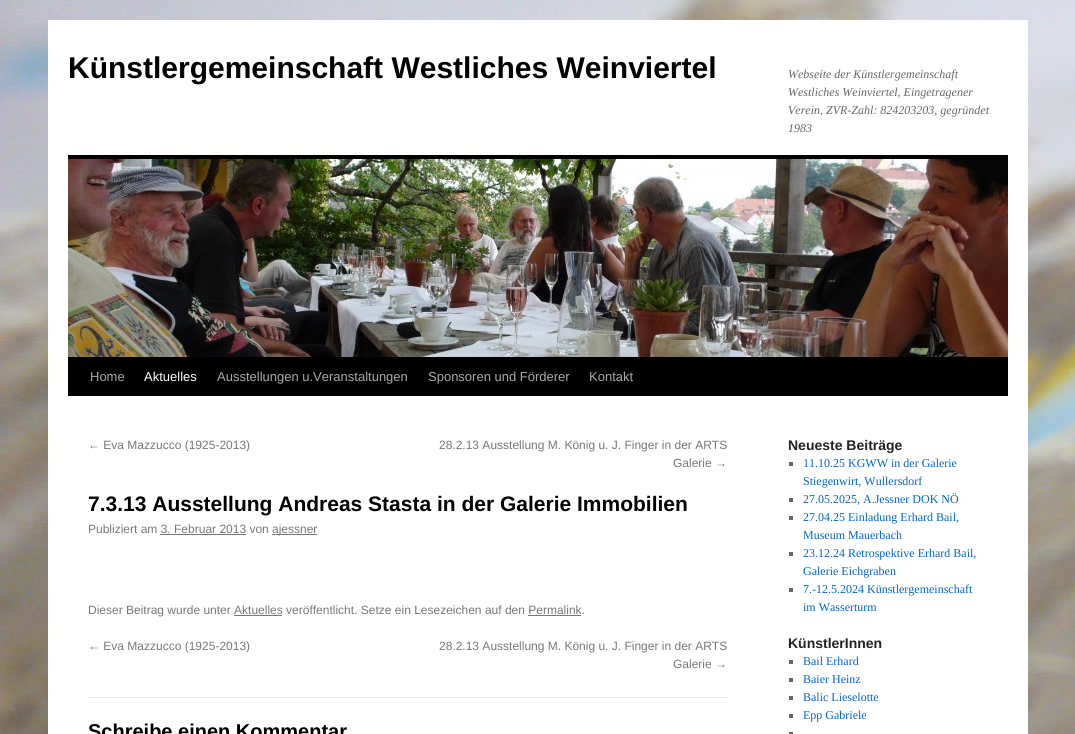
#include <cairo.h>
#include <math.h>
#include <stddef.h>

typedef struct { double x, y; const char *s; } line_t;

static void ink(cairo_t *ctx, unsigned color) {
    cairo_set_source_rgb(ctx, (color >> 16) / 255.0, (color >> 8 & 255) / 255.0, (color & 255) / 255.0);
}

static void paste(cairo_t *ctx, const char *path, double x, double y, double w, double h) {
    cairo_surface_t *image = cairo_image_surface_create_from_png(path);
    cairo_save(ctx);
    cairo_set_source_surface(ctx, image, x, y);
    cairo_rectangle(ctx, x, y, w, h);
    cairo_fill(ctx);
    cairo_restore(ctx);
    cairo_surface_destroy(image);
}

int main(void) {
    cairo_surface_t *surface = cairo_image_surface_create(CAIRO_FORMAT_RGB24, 1075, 734);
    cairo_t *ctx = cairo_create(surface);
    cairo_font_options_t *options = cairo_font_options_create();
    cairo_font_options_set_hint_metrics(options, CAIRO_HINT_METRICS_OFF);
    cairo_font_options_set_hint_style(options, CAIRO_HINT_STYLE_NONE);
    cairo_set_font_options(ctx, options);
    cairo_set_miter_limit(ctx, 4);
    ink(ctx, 0xFFFFFF);
    cairo_paint(ctx);
    paste(ctx, "media/1.png", 0, 0, 1075, 734);
    ink(ctx, 0xFFFFFF);
    cairo_rectangle(ctx, 48, 20, 980, 714);
    cairo_fill(ctx);
    cairo_select_font_face(ctx, "Liberation Sans", CAIRO_FONT_SLANT_NORMAL, CAIRO_FONT_WEIGHT_BOLD);
    cairo_set_font_size(ctx, 30);
    ink(ctx, 0x000000);
    cairo_move_to(ctx, 68, 78);
    cairo_show_text(ctx, "Künstlergemeinschaft Westliches Weinviertel");
    cairo_select_font_face(ctx, "Liberation Serif", CAIRO_FONT_SLANT_ITALIC, CAIRO_FONT_WEIGHT_NORMAL);
    cairo_set_font_size(ctx, 12);
    ink(ctx, 0x666666);
    {
        static const line_t items[] = {
            {788, 78, "Webseite der Künstlergemeinschaft"},
            {788, 96, "Westliches Weinviertel, Eingetragener"},
            {788, 114, "Verein, ZVR-Zahl: 824203203, gegründet"},
            {788, 132, "1983"},
        };
        for (size_t i = 0; i < sizeof items / sizeof *items; i++) {
            cairo_move_to(ctx, items[i].x, items[i].y);
            cairo_show_text(ctx, items[i].s);
        }
    }
    ink(ctx, 0x000000);
    cairo_rectangle(ctx, 68, 155, 940, 4);
    cairo_fill(ctx);
    cairo_rectangle(ctx, 68, 357, 940, 39);
    cairo_fill(ctx);
    paste(ctx, "media/2.png", 68, 159, 940, 198);
    cairo_select_font_face(ctx, "Liberation Sans", CAIRO_FONT_SLANT_NORMAL, CAIRO_FONT_WEIGHT_NORMAL);
    cairo_set_font_size(ctx, 13);
    ink(ctx, 0xAAAAAA);
    cairo_move_to(ctx, 90, 381);
    cairo_show_text(ctx, "Home");
    ink(ctx, 0xFFFFFF);
    cairo_move_to(ctx, 144, 381);
    cairo_show_text(ctx, "Aktuelles");
    ink(ctx, 0xAAAAAA);
    {
        static const line_t items[] = {
            {217, 381, "Ausstellungen u.Veranstaltungen"},
            {428, 381, "Sponsoren und Förderer"},
            {589, 381, "Kontakt"},
        };
        for (size_t i = 0; i < sizeof items / sizeof *items; i++) {
            cairo_move_to(ctx, items[i].x, items[i].y);
            cairo_show_text(ctx, items[i].s);
        }
    }
    cairo_set_font_size(ctx, 12);
    ink(ctx, 0x777777);
    {
        static const line_t items[] = {
            {88, 449, "← Eva Mazzucco (1925-2013)"},
            {439, 449, "28.2.13 Ausstellung M. König u. J. Finger in der ARTS"},
            {673, 467, "Galerie →"},
        };
        for (size_t i = 0; i < sizeof items / sizeof *items; i++) {
            cairo_move_to(ctx, items[i].x, items[i].y);
            cairo_show_text(ctx, items[i].s);
        }
    }
    cairo_select_font_face(ctx, "Liberation Sans", CAIRO_FONT_SLANT_NORMAL, CAIRO_FONT_WEIGHT_BOLD);
    cairo_set_font_size(ctx, 21);
    ink(ctx, 0x000000);
    cairo_move_to(ctx, 88, 511);
    cairo_show_text(ctx, "7.3.13 Ausstellung Andreas Stasta in der Galerie Immobilien");
    cairo_select_font_face(ctx, "Liberation Sans", CAIRO_FONT_SLANT_NORMAL, CAIRO_FONT_WEIGHT_NORMAL);
    cairo_set_font_size(ctx, 12);
    ink(ctx, 0x777777);
    cairo_move_to(ctx, 88, 533);
    cairo_show_text(ctx, "Publiziert am 3. Februar 2013 von");
    cairo_rectangle(ctx, 272, 534, 45, 1);
    cairo_fill(ctx);
    cairo_move_to(ctx, 272, 533);
    cairo_show_text(ctx, "ajessner");
    cairo_rectangle(ctx, 160, 534, 86, 1);
    cairo_fill(ctx);
    cairo_move_to(ctx, 88, 614);
    cairo_show_text(ctx, "Dieser Beitrag wurde unter Aktuelles veröffentlicht. Setze ein Lesezeichen auf den Permalink.");
    cairo_rectangle(ctx, 234, 615, 48, 1);
    cairo_fill(ctx);
    cairo_rectangle(ctx, 528, 615, 53, 1);
    cairo_fill(ctx);
    {
        static const line_t items[] = {
            {88, 650, "← Eva Mazzucco (1925-2013)"},
            {439, 650, "28.2.13 Ausstellung M. König u. J. Finger in der ARTS"},
            {673, 668, "Galerie →"},
        };
        for (size_t i = 0; i < sizeof items / sizeof *items; i++) {
            cairo_move_to(ctx, items[i].x, items[i].y);
            cairo_show_text(ctx, items[i].s);
        }
    }
    ink(ctx, 0xE7E7E7);
    cairo_rectangle(ctx, 88, 697, 640, 1);
    cairo_fill(ctx);
    cairo_select_font_face(ctx, "Liberation Sans", CAIRO_FONT_SLANT_NORMAL, CAIRO_FONT_WEIGHT_BOLD);
    cairo_set_font_size(ctx, 20);
    ink(ctx, 0x000000);
    cairo_move_to(ctx, 88, 738);
    cairo_show_text(ctx, "Schreibe einen Kommentar");
    cairo_set_font_size(ctx, 14);
    ink(ctx, 0x222222);
    cairo_move_to(ctx, 788, 450);
    cairo_show_text(ctx, "Neueste Beiträge");
    ink(ctx, 0x666666);
    cairo_rectangle(ctx, 789, 462, 4, 4);
    cairo_fill(ctx);
    cairo_select_font_face(ctx, "Liberation Serif", CAIRO_FONT_SLANT_NORMAL, CAIRO_FONT_WEIGHT_NORMAL);
    cairo_set_font_size(ctx, 12);
    ink(ctx, 0x0066CC);
    cairo_move_to(ctx, 803, 467);
    cairo_show_text(ctx, "11.10.25 KGWW in der Galerie");
    cairo_move_to(ctx, 803, 485);
    cairo_show_text(ctx, "Stiegenwirt, Wullersdorf");
    ink(ctx, 0x666666);
    cairo_rectangle(ctx, 789, 498, 4, 4);
    cairo_fill(ctx);
    ink(ctx, 0x0066CC);
    cairo_move_to(ctx, 803, 503);
    cairo_show_text(ctx, "27.05.2025, A.Jessner DOK NÖ");
    ink(ctx, 0x666666);
    cairo_rectangle(ctx, 789, 516, 4, 4);
    cairo_fill(ctx);
    ink(ctx, 0x0066CC);
    cairo_move_to(ctx, 803, 521);
    cairo_show_text(ctx, "27.04.25 Einladung Erhard Bail,");
    cairo_move_to(ctx, 803, 539);
    cairo_show_text(ctx, "Museum Mauerbach");
    ink(ctx, 0x666666);
    cairo_rectangle(ctx, 789, 552, 4, 4);
    cairo_fill(ctx);
    ink(ctx, 0x0066CC);
    cairo_move_to(ctx, 803, 557);
    cairo_show_text(ctx, "23.12.24 Retrospektive Erhard Bail,");
    cairo_move_to(ctx, 803, 575);
    cairo_show_text(ctx, "Galerie Eichgraben");
    ink(ctx, 0x666666);
    cairo_rectangle(ctx, 789, 588, 4, 4);
    cairo_fill(ctx);
    ink(ctx, 0x0066CC);
    cairo_move_to(ctx, 803, 593);
    cairo_show_text(ctx, "7.-12.5.2024 Künstlergemeinschaft");
    cairo_move_to(ctx, 803, 611);
    cairo_show_text(ctx, "im Wasserturm");
    cairo_select_font_face(ctx, "Liberation Sans", CAIRO_FONT_SLANT_NORMAL, CAIRO_FONT_WEIGHT_BOLD);
    cairo_set_font_size(ctx, 14);
    ink(ctx, 0x222222);
    cairo_move_to(ctx, 788, 648);
    cairo_show_text(ctx, "KünstlerInnen");
    ink(ctx, 0x666666);
    cairo_rectangle(ctx, 789, 660, 4, 4);
    cairo_fill(ctx);
    cairo_select_font_face(ctx, "Liberation Serif", CAIRO_FONT_SLANT_NORMAL, CAIRO_FONT_WEIGHT_NORMAL);
    cairo_set_font_size(ctx, 12);
    ink(ctx, 0x0066CC);
    cairo_move_to(ctx, 803, 665);
    cairo_show_text(ctx, "Bail Erhard");
    ink(ctx, 0x666666);
    cairo_rectangle(ctx, 789, 678, 4, 4);
    cairo_fill(ctx);
    ink(ctx, 0x0066CC);
    cairo_move_to(ctx, 803, 683);
    cairo_show_text(ctx, "Baier Heinz");
    ink(ctx, 0x666666);
    cairo_rectangle(ctx, 789, 696, 4, 4);
    cairo_fill(ctx);
    ink(ctx, 0x0066CC);
    cairo_move_to(ctx, 803, 701);
    cairo_show_text(ctx, "Balic Lieselotte");
    ink(ctx, 0x666666);
    cairo_rectangle(ctx, 789, 714, 4, 4);
    cairo_fill(ctx);
    ink(ctx, 0x0066CC);
    cairo_move_to(ctx, 803, 719);
    cairo_show_text(ctx, "Epp Gabriele");
    ink(ctx, 0x666666);
    cairo_rectangle(ctx, 789, 732, 4, 2);
    cairo_fill(ctx);
    cairo_surface_write_to_png(surface, "image.png");
    cairo_font_options_destroy(options);
    cairo_destroy(ctx);
    cairo_surface_destroy(surface);
    return 0;
}
